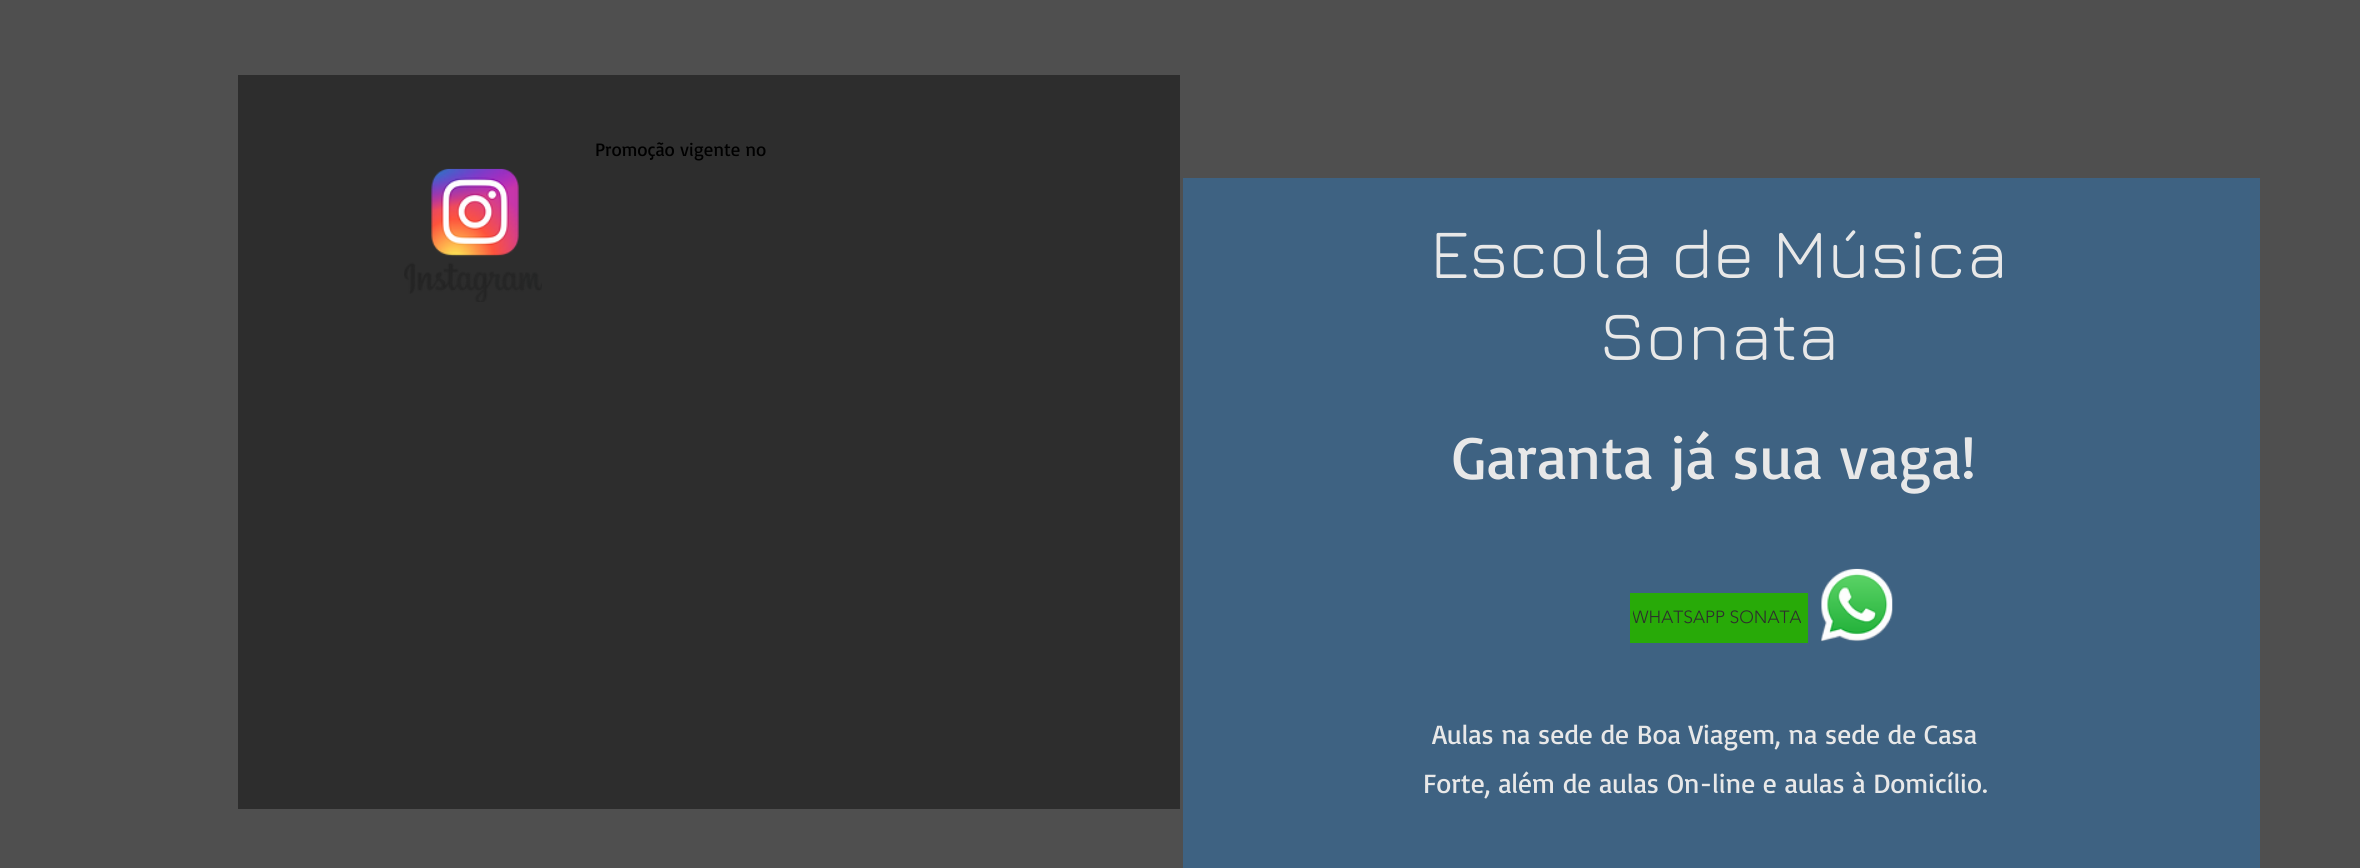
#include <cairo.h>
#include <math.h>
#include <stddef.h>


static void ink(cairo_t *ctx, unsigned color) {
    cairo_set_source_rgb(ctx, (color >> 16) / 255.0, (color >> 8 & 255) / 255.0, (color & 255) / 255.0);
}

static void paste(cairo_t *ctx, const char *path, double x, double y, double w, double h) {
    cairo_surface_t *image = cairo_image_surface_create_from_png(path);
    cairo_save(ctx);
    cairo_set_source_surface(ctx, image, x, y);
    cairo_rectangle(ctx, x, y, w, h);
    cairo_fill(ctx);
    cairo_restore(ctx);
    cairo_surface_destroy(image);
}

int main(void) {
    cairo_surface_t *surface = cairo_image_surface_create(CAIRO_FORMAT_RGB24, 2360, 868);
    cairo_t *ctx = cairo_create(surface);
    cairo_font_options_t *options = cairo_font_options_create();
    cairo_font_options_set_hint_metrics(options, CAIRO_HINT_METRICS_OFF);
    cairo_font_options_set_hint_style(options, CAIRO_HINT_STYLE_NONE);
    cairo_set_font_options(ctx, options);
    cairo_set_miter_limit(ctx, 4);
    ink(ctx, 0x4F4F4F);
    cairo_paint(ctx);
    ink(ctx, 0x2D2D2D);
    cairo_rectangle(ctx, 238, 75, 942, 734);
    cairo_fill(ctx);
    cairo_select_font_face(ctx, "Basic", CAIRO_FONT_SLANT_NORMAL, CAIRO_FONT_WEIGHT_NORMAL);
    cairo_set_font_size(ctx, 18.75);
    ink(ctx, 0x000000);
    cairo_move_to(ctx, 595, 156);
    cairo_show_text(ctx, "Promoção vigente no");
    paste(ctx, "media/1.png", 404, 168, 138, 134);
    ink(ctx, 0x3E6282);
    cairo_rectangle(ctx, 1183, 178, 1077, 690);
    cairo_fill(ctx);
    cairo_select_font_face(ctx, "Jura", CAIRO_FONT_SLANT_NORMAL, CAIRO_FONT_WEIGHT_NORMAL);
    cairo_set_font_size(ctx, 70);
    ink(ctx, 0xE8E8E8);
    cairo_move_to(ctx, 1430, 278);
    cairo_show_text(ctx, "Escola de Música");
    cairo_move_to(ctx, 1599, 360);
    cairo_show_text(ctx, "Sonata");
    cairo_select_font_face(ctx, "Basic", CAIRO_FONT_SLANT_NORMAL, CAIRO_FONT_WEIGHT_NORMAL);
    cairo_set_font_size(ctx, 61.25);
    cairo_move_to(ctx, 1452, 479);
    cairo_show_text(ctx, "Garanta já sua vaga!");
    ink(ctx, 0x28AA08);
    cairo_rectangle(ctx, 1630, 593, 178, 50);
    cairo_fill(ctx);
    cairo_save(ctx);
    cairo_rectangle(ctx, 1633, 608, 168, 21);
    cairo_clip(ctx);
    cairo_select_font_face(ctx, "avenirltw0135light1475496 Light", CAIRO_FONT_SLANT_NORMAL, CAIRO_FONT_WEIGHT_NORMAL);
    cairo_set_font_size(ctx, 17.5);
    ink(ctx, 0x2D2D2D);
    cairo_move_to(ctx, 1632, 623);
    cairo_show_text(ctx, "WHATSAPP SONATA");
    cairo_restore(ctx);
    paste(ctx, "media/2.png", 1821, 568, 72, 74);
    cairo_set_font_size(ctx, 27.5);
    ink(ctx, 0xE8E8E8);
    cairo_move_to(ctx, 1432, 744);
    cairo_show_text(ctx, "Aulas na sede de Boa Viagem, na sede de Casa");
    cairo_move_to(ctx, 1423, 793);
    cairo_show_text(ctx, "Forte, além de aulas On-line e aulas à Domicílio.");
    cairo_surface_write_to_png(surface, "image.png");
    cairo_font_options_destroy(options);
    cairo_destroy(ctx);
    cairo_surface_destroy(surface);
    return 0;
}
